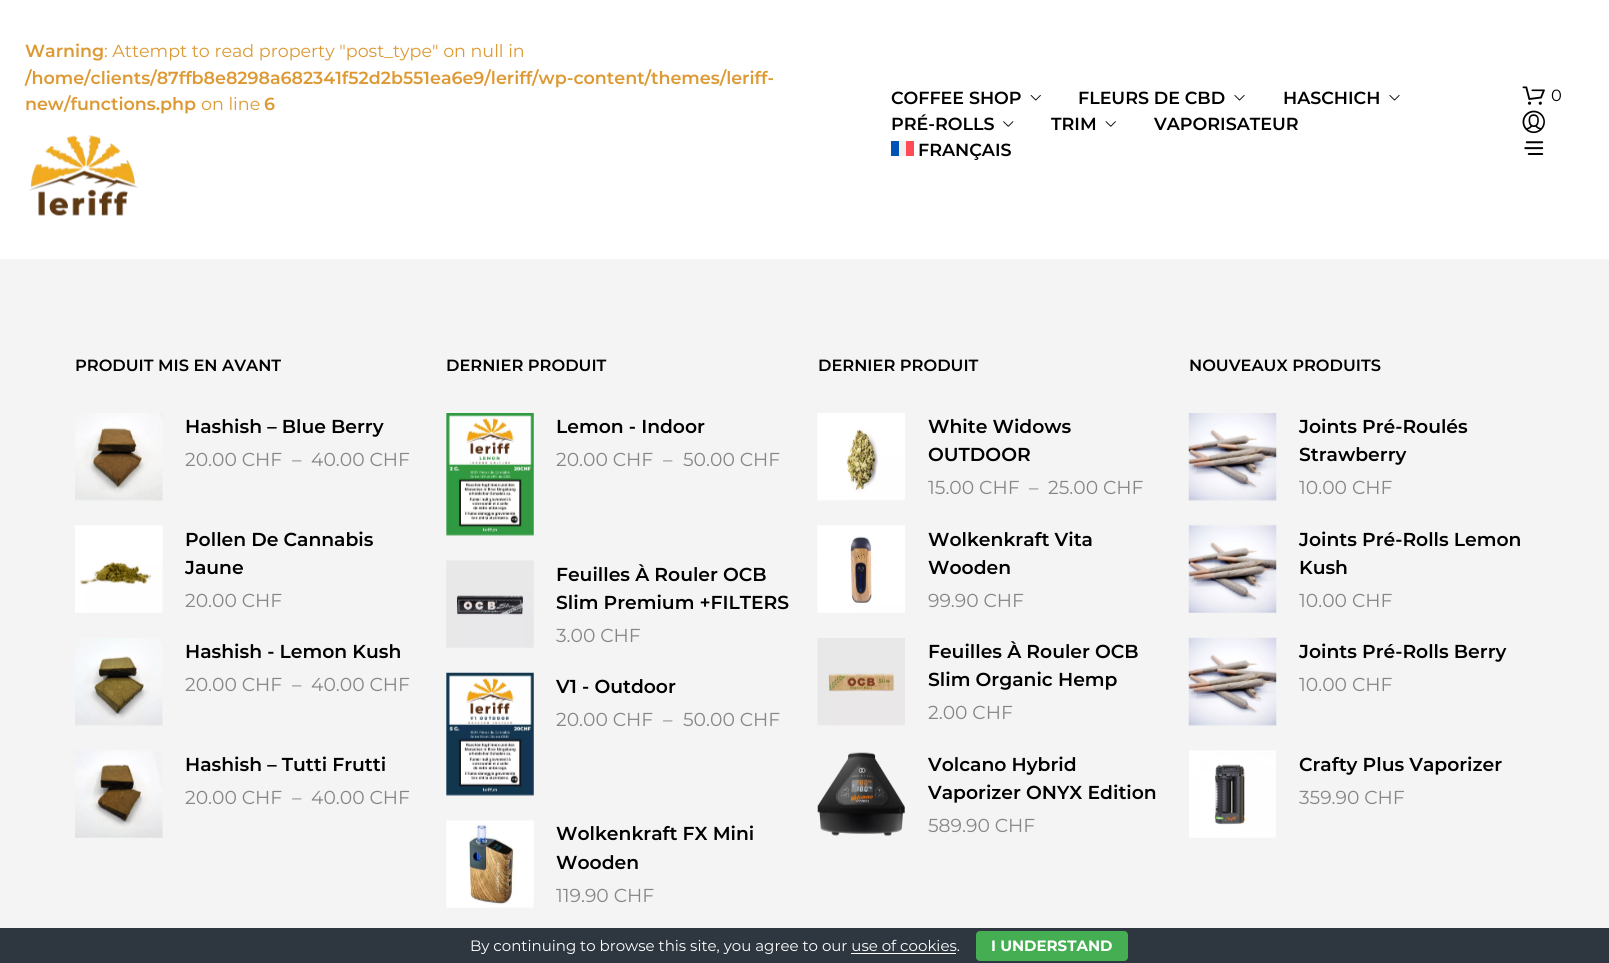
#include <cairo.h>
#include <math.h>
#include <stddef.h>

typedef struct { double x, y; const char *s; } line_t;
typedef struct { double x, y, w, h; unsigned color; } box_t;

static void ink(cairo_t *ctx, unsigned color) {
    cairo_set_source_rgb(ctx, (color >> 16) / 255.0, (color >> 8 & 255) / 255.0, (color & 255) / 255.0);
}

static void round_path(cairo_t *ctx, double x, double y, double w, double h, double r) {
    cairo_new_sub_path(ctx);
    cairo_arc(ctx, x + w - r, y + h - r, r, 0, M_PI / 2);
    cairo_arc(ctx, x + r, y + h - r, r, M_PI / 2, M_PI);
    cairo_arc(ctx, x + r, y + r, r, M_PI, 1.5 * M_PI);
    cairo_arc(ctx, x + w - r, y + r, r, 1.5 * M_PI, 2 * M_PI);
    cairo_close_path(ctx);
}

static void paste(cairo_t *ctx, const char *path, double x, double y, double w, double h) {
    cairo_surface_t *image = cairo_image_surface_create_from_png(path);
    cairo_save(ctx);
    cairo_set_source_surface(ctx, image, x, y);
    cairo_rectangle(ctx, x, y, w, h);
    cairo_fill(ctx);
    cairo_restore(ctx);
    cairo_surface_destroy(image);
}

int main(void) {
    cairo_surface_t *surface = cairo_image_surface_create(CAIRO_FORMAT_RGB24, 1609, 963);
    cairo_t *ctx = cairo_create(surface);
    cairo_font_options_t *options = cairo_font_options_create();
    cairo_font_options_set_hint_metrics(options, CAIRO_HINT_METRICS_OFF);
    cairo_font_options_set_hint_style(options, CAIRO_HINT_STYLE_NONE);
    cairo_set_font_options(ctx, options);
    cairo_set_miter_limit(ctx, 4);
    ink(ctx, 0xFFFFFF);
    cairo_paint(ctx);
    cairo_select_font_face(ctx, "Montserrat SemiBold", CAIRO_FONT_SLANT_NORMAL, CAIRO_FONT_WEIGHT_NORMAL);
    cairo_set_font_size(ctx, 17.5);
    ink(ctx, 0xDD9933);
    cairo_move_to(ctx, 25, 57);
    cairo_show_text(ctx, "Warning");
    cairo_select_font_face(ctx, "Montserrat", CAIRO_FONT_SLANT_NORMAL, CAIRO_FONT_WEIGHT_NORMAL);
    cairo_move_to(ctx, 104, 57);
    cairo_show_text(ctx, ": Attempt to read property \"post_type\" on null in");
    cairo_select_font_face(ctx, "Montserrat SemiBold", CAIRO_FONT_SLANT_NORMAL, CAIRO_FONT_WEIGHT_NORMAL);
    cairo_move_to(ctx, 25, 84);
    cairo_show_text(ctx, "/home/clients/87ffb8e8298a682341f52d2b551ea6e9/leriff/wp-content/themes/leriff-");
    cairo_move_to(ctx, 25, 110);
    cairo_show_text(ctx, "new/functions.php");
    cairo_select_font_face(ctx, "Montserrat", CAIRO_FONT_SLANT_NORMAL, CAIRO_FONT_WEIGHT_NORMAL);
    cairo_move_to(ctx, 201, 110);
    cairo_show_text(ctx, "on line");
    cairo_select_font_face(ctx, "Montserrat SemiBold", CAIRO_FONT_SLANT_NORMAL, CAIRO_FONT_WEIGHT_NORMAL);
    cairo_move_to(ctx, 264, 110);
    cairo_show_text(ctx, "6");
    paste(ctx, "media/1.png", 29, 135, 109, 81);
    ink(ctx, 0x000000);
    cairo_move_to(ctx, 891, 104);
    cairo_show_text(ctx, "COFFEE SHOP");
    paste(ctx, "media/2.png", 1030, 95, 11, 6);
    cairo_move_to(ctx, 1078, 104);
    cairo_show_text(ctx, "FLEURS DE CBD");
    paste(ctx, "media/3.png", 1234, 95, 11, 6);
    cairo_move_to(ctx, 1283, 104);
    cairo_show_text(ctx, "HASCHICH");
    paste(ctx, "media/3.png", 1389, 95, 11, 6);
    cairo_move_to(ctx, 891, 130);
    cairo_show_text(ctx, "PRÉ-ROLLS");
    paste(ctx, "media/4.png", 1003, 121, 11, 6);
    cairo_move_to(ctx, 1051, 130);
    cairo_show_text(ctx, "TRIM");
    paste(ctx, "media/5.png", 1105, 121, 11, 6);
    cairo_move_to(ctx, 1154, 130);
    cairo_show_text(ctx, "VAPORISATEUR");
    {
        static const box_t items[] = {
            {891, 141, 8, 15, 0x0052B4},
            {899, 141, 7, 15, 0xF0F0F0},
            {906, 141, 8, 15, 0xFF4B55},
        };
        for (size_t i = 0; i < sizeof items / sizeof *items; i++) {
            ink(ctx, items[i].color);
            cairo_rectangle(ctx, items[i].x, items[i].y, items[i].w, items[i].h);
            cairo_fill(ctx);
        }
    }
    ink(ctx, 0x000000);
    cairo_move_to(ctx, 918, 156);
    cairo_show_text(ctx, "FRANÇAIS");
    paste(ctx, "media/6.png", 1522, 86, 23, 19);
    cairo_select_font_face(ctx, "Montserrat", CAIRO_FONT_SLANT_NORMAL, CAIRO_FONT_WEIGHT_NORMAL);
    cairo_set_font_size(ctx, 16.25);
    cairo_move_to(ctx, 1551, 101);
    cairo_show_text(ctx, "0");
    paste(ctx, "media/7.png", 1522, 110, 23, 24);
    paste(ctx, "media/8.png", 1524, 141, 20, 14);
    ink(ctx, 0xF4F4F4);
    cairo_rectangle(ctx, 0, 259, 1609, 669);
    cairo_fill(ctx);
    cairo_select_font_face(ctx, "Montserrat SemiBold", CAIRO_FONT_SLANT_NORMAL, CAIRO_FONT_WEIGHT_NORMAL);
    ink(ctx, 0x000000);
    cairo_move_to(ctx, 75, 371);
    cairo_show_text(ctx, "PRODUIT MIS EN AVANT");
    paste(ctx, "media/9.png", 75, 413, 88, 88);
    cairo_set_font_size(ctx, 18.75);
    cairo_move_to(ctx, 185, 433);
    cairo_show_text(ctx, "Hashish – Blue Berry");
    cairo_select_font_face(ctx, "Montserrat", CAIRO_FONT_SLANT_NORMAL, CAIRO_FONT_WEIGHT_NORMAL);
    ink(ctx, 0x868686);
    {
        static const line_t items[] = {
            {185, 466, "20.00 CHF"},
            {292, 466, "–"},
            {311, 466, "40.00 CHF"},
        };
        for (size_t i = 0; i < sizeof items / sizeof *items; i++) {
            cairo_move_to(ctx, items[i].x, items[i].y);
            cairo_show_text(ctx, items[i].s);
        }
    }
    paste(ctx, "media/10.png", 75, 525, 88, 88);
    cairo_select_font_face(ctx, "Montserrat SemiBold", CAIRO_FONT_SLANT_NORMAL, CAIRO_FONT_WEIGHT_NORMAL);
    ink(ctx, 0x000000);
    cairo_move_to(ctx, 185, 546);
    cairo_show_text(ctx, "Pollen De Cannabis");
    cairo_move_to(ctx, 185, 574);
    cairo_show_text(ctx, "Jaune");
    cairo_select_font_face(ctx, "Montserrat", CAIRO_FONT_SLANT_NORMAL, CAIRO_FONT_WEIGHT_NORMAL);
    ink(ctx, 0x868686);
    cairo_move_to(ctx, 185, 607);
    cairo_show_text(ctx, "20.00 CHF");
    paste(ctx, "media/11.png", 75, 638, 88, 88);
    cairo_select_font_face(ctx, "Montserrat SemiBold", CAIRO_FONT_SLANT_NORMAL, CAIRO_FONT_WEIGHT_NORMAL);
    ink(ctx, 0x000000);
    cairo_move_to(ctx, 185, 658);
    cairo_show_text(ctx, "Hashish - Lemon Kush");
    cairo_select_font_face(ctx, "Montserrat", CAIRO_FONT_SLANT_NORMAL, CAIRO_FONT_WEIGHT_NORMAL);
    ink(ctx, 0x868686);
    {
        static const line_t items[] = {
            {185, 691, "20.00 CHF"},
            {292, 691, "–"},
            {311, 691, "40.00 CHF"},
        };
        for (size_t i = 0; i < sizeof items / sizeof *items; i++) {
            cairo_move_to(ctx, items[i].x, items[i].y);
            cairo_show_text(ctx, items[i].s);
        }
    }
    paste(ctx, "media/12.png", 75, 750, 88, 88);
    cairo_select_font_face(ctx, "Montserrat SemiBold", CAIRO_FONT_SLANT_NORMAL, CAIRO_FONT_WEIGHT_NORMAL);
    ink(ctx, 0x000000);
    cairo_move_to(ctx, 185, 771);
    cairo_show_text(ctx, "Hashish – Tutti Frutti");
    cairo_select_font_face(ctx, "Montserrat", CAIRO_FONT_SLANT_NORMAL, CAIRO_FONT_WEIGHT_NORMAL);
    ink(ctx, 0x868686);
    {
        static const line_t items[] = {
            {185, 804, "20.00 CHF"},
            {292, 804, "–"},
            {311, 804, "40.00 CHF"},
        };
        for (size_t i = 0; i < sizeof items / sizeof *items; i++) {
            cairo_move_to(ctx, items[i].x, items[i].y);
            cairo_show_text(ctx, items[i].s);
        }
    }
    cairo_select_font_face(ctx, "Montserrat SemiBold", CAIRO_FONT_SLANT_NORMAL, CAIRO_FONT_WEIGHT_NORMAL);
    cairo_set_font_size(ctx, 16.25);
    ink(ctx, 0x000000);
    cairo_move_to(ctx, 446, 371);
    cairo_show_text(ctx, "DERNIER PRODUIT");
    paste(ctx, "media/13.png", 446, 413, 88, 123);
    cairo_set_font_size(ctx, 18.75);
    cairo_move_to(ctx, 556, 433);
    cairo_show_text(ctx, "Lemon - Indoor");
    cairo_select_font_face(ctx, "Montserrat", CAIRO_FONT_SLANT_NORMAL, CAIRO_FONT_WEIGHT_NORMAL);
    ink(ctx, 0x868686);
    {
        static const line_t items[] = {
            {556, 466, "20.00 CHF"},
            {663, 466, "–"},
            {683, 466, "50.00 CHF"},
        };
        for (size_t i = 0; i < sizeof items / sizeof *items; i++) {
            cairo_move_to(ctx, items[i].x, items[i].y);
            cairo_show_text(ctx, items[i].s);
        }
    }
    paste(ctx, "media/14.png", 446, 560, 88, 88);
    cairo_select_font_face(ctx, "Montserrat SemiBold", CAIRO_FONT_SLANT_NORMAL, CAIRO_FONT_WEIGHT_NORMAL);
    ink(ctx, 0x000000);
    cairo_move_to(ctx, 556, 581);
    cairo_show_text(ctx, "Feuilles À Rouler OCB");
    cairo_move_to(ctx, 556, 609);
    cairo_show_text(ctx, "Slim Premium +FILTERS");
    cairo_select_font_face(ctx, "Montserrat", CAIRO_FONT_SLANT_NORMAL, CAIRO_FONT_WEIGHT_NORMAL);
    ink(ctx, 0x868686);
    cairo_move_to(ctx, 556, 642);
    cairo_show_text(ctx, "3.00 CHF");
    paste(ctx, "media/15.png", 446, 672, 88, 124);
    cairo_select_font_face(ctx, "Montserrat SemiBold", CAIRO_FONT_SLANT_NORMAL, CAIRO_FONT_WEIGHT_NORMAL);
    ink(ctx, 0x000000);
    cairo_move_to(ctx, 556, 693);
    cairo_show_text(ctx, "V1 - Outdoor");
    cairo_select_font_face(ctx, "Montserrat", CAIRO_FONT_SLANT_NORMAL, CAIRO_FONT_WEIGHT_NORMAL);
    ink(ctx, 0x868686);
    {
        static const line_t items[] = {
            {556, 726, "20.00 CHF"},
            {663, 726, "–"},
            {683, 726, "50.00 CHF"},
        };
        for (size_t i = 0; i < sizeof items / sizeof *items; i++) {
            cairo_move_to(ctx, items[i].x, items[i].y);
            cairo_show_text(ctx, items[i].s);
        }
    }
    paste(ctx, "media/16.png", 446, 820, 88, 88);
    cairo_select_font_face(ctx, "Montserrat SemiBold", CAIRO_FONT_SLANT_NORMAL, CAIRO_FONT_WEIGHT_NORMAL);
    ink(ctx, 0x000000);
    cairo_move_to(ctx, 556, 840);
    cairo_show_text(ctx, "Wolkenkraft FX Mini");
    cairo_move_to(ctx, 556, 869);
    cairo_show_text(ctx, "Wooden");
    cairo_select_font_face(ctx, "Montserrat", CAIRO_FONT_SLANT_NORMAL, CAIRO_FONT_WEIGHT_NORMAL);
    ink(ctx, 0x868686);
    cairo_move_to(ctx, 556, 902);
    cairo_show_text(ctx, "119.90 CHF");
    cairo_select_font_face(ctx, "Montserrat SemiBold", CAIRO_FONT_SLANT_NORMAL, CAIRO_FONT_WEIGHT_NORMAL);
    cairo_set_font_size(ctx, 16.25);
    ink(ctx, 0x000000);
    cairo_move_to(ctx, 818, 371);
    cairo_show_text(ctx, "DERNIER PRODUIT");
    paste(ctx, "media/17.png", 817, 413, 88, 88);
    cairo_set_font_size(ctx, 18.75);
    cairo_move_to(ctx, 928, 433);
    cairo_show_text(ctx, "White Widows");
    cairo_move_to(ctx, 928, 461);
    cairo_show_text(ctx, "OUTDOOR");
    cairo_select_font_face(ctx, "Montserrat", CAIRO_FONT_SLANT_NORMAL, CAIRO_FONT_WEIGHT_NORMAL);
    ink(ctx, 0x868686);
    {
        static const line_t items[] = {
            {928, 494, "15.00 CHF"},
            {1029, 494, "–"},
            {1048, 494, "25.00 CHF"},
        };
        for (size_t i = 0; i < sizeof items / sizeof *items; i++) {
            cairo_move_to(ctx, items[i].x, items[i].y);
            cairo_show_text(ctx, items[i].s);
        }
    }
    paste(ctx, "media/18.png", 817, 525, 88, 88);
    cairo_select_font_face(ctx, "Montserrat SemiBold", CAIRO_FONT_SLANT_NORMAL, CAIRO_FONT_WEIGHT_NORMAL);
    ink(ctx, 0x000000);
    cairo_move_to(ctx, 928, 546);
    cairo_show_text(ctx, "Wolkenkraft Vita");
    cairo_move_to(ctx, 928, 574);
    cairo_show_text(ctx, "Wooden");
    cairo_select_font_face(ctx, "Montserrat", CAIRO_FONT_SLANT_NORMAL, CAIRO_FONT_WEIGHT_NORMAL);
    ink(ctx, 0x868686);
    cairo_move_to(ctx, 928, 607);
    cairo_show_text(ctx, "99.90 CHF");
    paste(ctx, "media/19.png", 817, 638, 88, 88);
    cairo_select_font_face(ctx, "Montserrat SemiBold", CAIRO_FONT_SLANT_NORMAL, CAIRO_FONT_WEIGHT_NORMAL);
    ink(ctx, 0x000000);
    cairo_move_to(ctx, 928, 658);
    cairo_show_text(ctx, "Feuilles À Rouler OCB");
    cairo_move_to(ctx, 928, 686);
    cairo_show_text(ctx, "Slim Organic Hemp");
    cairo_select_font_face(ctx, "Montserrat", CAIRO_FONT_SLANT_NORMAL, CAIRO_FONT_WEIGHT_NORMAL);
    ink(ctx, 0x868686);
    cairo_move_to(ctx, 928, 719);
    cairo_show_text(ctx, "2.00 CHF");
    paste(ctx, "media/20.png", 817, 752, 88, 84);
    cairo_select_font_face(ctx, "Montserrat SemiBold", CAIRO_FONT_SLANT_NORMAL, CAIRO_FONT_WEIGHT_NORMAL);
    ink(ctx, 0x000000);
    cairo_move_to(ctx, 928, 771);
    cairo_show_text(ctx, "Volcano Hybrid");
    cairo_move_to(ctx, 928, 799);
    cairo_show_text(ctx, "Vaporizer ONYX Edition");
    cairo_select_font_face(ctx, "Montserrat", CAIRO_FONT_SLANT_NORMAL, CAIRO_FONT_WEIGHT_NORMAL);
    ink(ctx, 0x868686);
    cairo_move_to(ctx, 928, 832);
    cairo_show_text(ctx, "589.90 CHF");
    cairo_select_font_face(ctx, "Montserrat SemiBold", CAIRO_FONT_SLANT_NORMAL, CAIRO_FONT_WEIGHT_NORMAL);
    cairo_set_font_size(ctx, 16.25);
    ink(ctx, 0x000000);
    cairo_move_to(ctx, 1189, 371);
    cairo_show_text(ctx, "NOUVEAUX PRODUITS");
    paste(ctx, "media/21.png", 1188, 413, 89, 88);
    cairo_set_font_size(ctx, 18.75);
    cairo_move_to(ctx, 1299, 433);
    cairo_show_text(ctx, "Joints Pré-Roulés");
    cairo_move_to(ctx, 1299, 461);
    cairo_show_text(ctx, "Strawberry");
    cairo_select_font_face(ctx, "Montserrat", CAIRO_FONT_SLANT_NORMAL, CAIRO_FONT_WEIGHT_NORMAL);
    ink(ctx, 0x868686);
    cairo_move_to(ctx, 1299, 494);
    cairo_show_text(ctx, "10.00 CHF");
    paste(ctx, "media/22.png", 1188, 524, 89, 89);
    cairo_select_font_face(ctx, "Montserrat SemiBold", CAIRO_FONT_SLANT_NORMAL, CAIRO_FONT_WEIGHT_NORMAL);
    ink(ctx, 0x000000);
    cairo_move_to(ctx, 1299, 546);
    cairo_show_text(ctx, "Joints Pré-Rolls Lemon");
    cairo_move_to(ctx, 1299, 574);
    cairo_show_text(ctx, "Kush");
    cairo_select_font_face(ctx, "Montserrat", CAIRO_FONT_SLANT_NORMAL, CAIRO_FONT_WEIGHT_NORMAL);
    ink(ctx, 0x868686);
    cairo_move_to(ctx, 1299, 607);
    cairo_show_text(ctx, "10.00 CHF");
    paste(ctx, "media/23.png", 1188, 637, 89, 89);
    cairo_select_font_face(ctx, "Montserrat SemiBold", CAIRO_FONT_SLANT_NORMAL, CAIRO_FONT_WEIGHT_NORMAL);
    ink(ctx, 0x000000);
    cairo_move_to(ctx, 1299, 658);
    cairo_show_text(ctx, "Joints Pré-Rolls Berry");
    cairo_select_font_face(ctx, "Montserrat", CAIRO_FONT_SLANT_NORMAL, CAIRO_FONT_WEIGHT_NORMAL);
    ink(ctx, 0x868686);
    cairo_move_to(ctx, 1299, 691);
    cairo_show_text(ctx, "10.00 CHF");
    paste(ctx, "media/24.png", 1189, 750, 87, 88);
    cairo_select_font_face(ctx, "Montserrat SemiBold", CAIRO_FONT_SLANT_NORMAL, CAIRO_FONT_WEIGHT_NORMAL);
    ink(ctx, 0x000000);
    cairo_move_to(ctx, 1299, 771);
    cairo_show_text(ctx, "Crafty Plus Vaporizer");
    cairo_select_font_face(ctx, "Montserrat", CAIRO_FONT_SLANT_NORMAL, CAIRO_FONT_WEIGHT_NORMAL);
    ink(ctx, 0x868686);
    cairo_move_to(ctx, 1299, 804);
    cairo_show_text(ctx, "359.90 CHF");
    ink(ctx, 0x2E363F);
    cairo_rectangle(ctx, 0, 928, 1609, 35);
    cairo_fill(ctx);
    cairo_set_font_size(ctx, 15);
    ink(ctx, 0xFFFFFF);
    cairo_move_to(ctx, 470, 951);
    cairo_show_text(ctx, "By continuing to browse this site, you agree to our use of cookies.");
    ink(ctx, 0x45AE52);
    round_path(ctx, 976, 931, 152, 30, 4);
    cairo_fill(ctx);
    cairo_select_font_face(ctx, "Montserrat", CAIRO_FONT_SLANT_NORMAL, CAIRO_FONT_WEIGHT_BOLD);
    ink(ctx, 0xFFFFFF);
    cairo_move_to(ctx, 991, 951);
    cairo_show_text(ctx, "I UNDERSTAND");
    cairo_rectangle(ctx, 851, 953, 105, 1);
    cairo_fill(ctx);
    cairo_surface_write_to_png(surface, "image.png");
    cairo_font_options_destroy(options);
    cairo_destroy(ctx);
    cairo_surface_destroy(surface);
    return 0;
}
